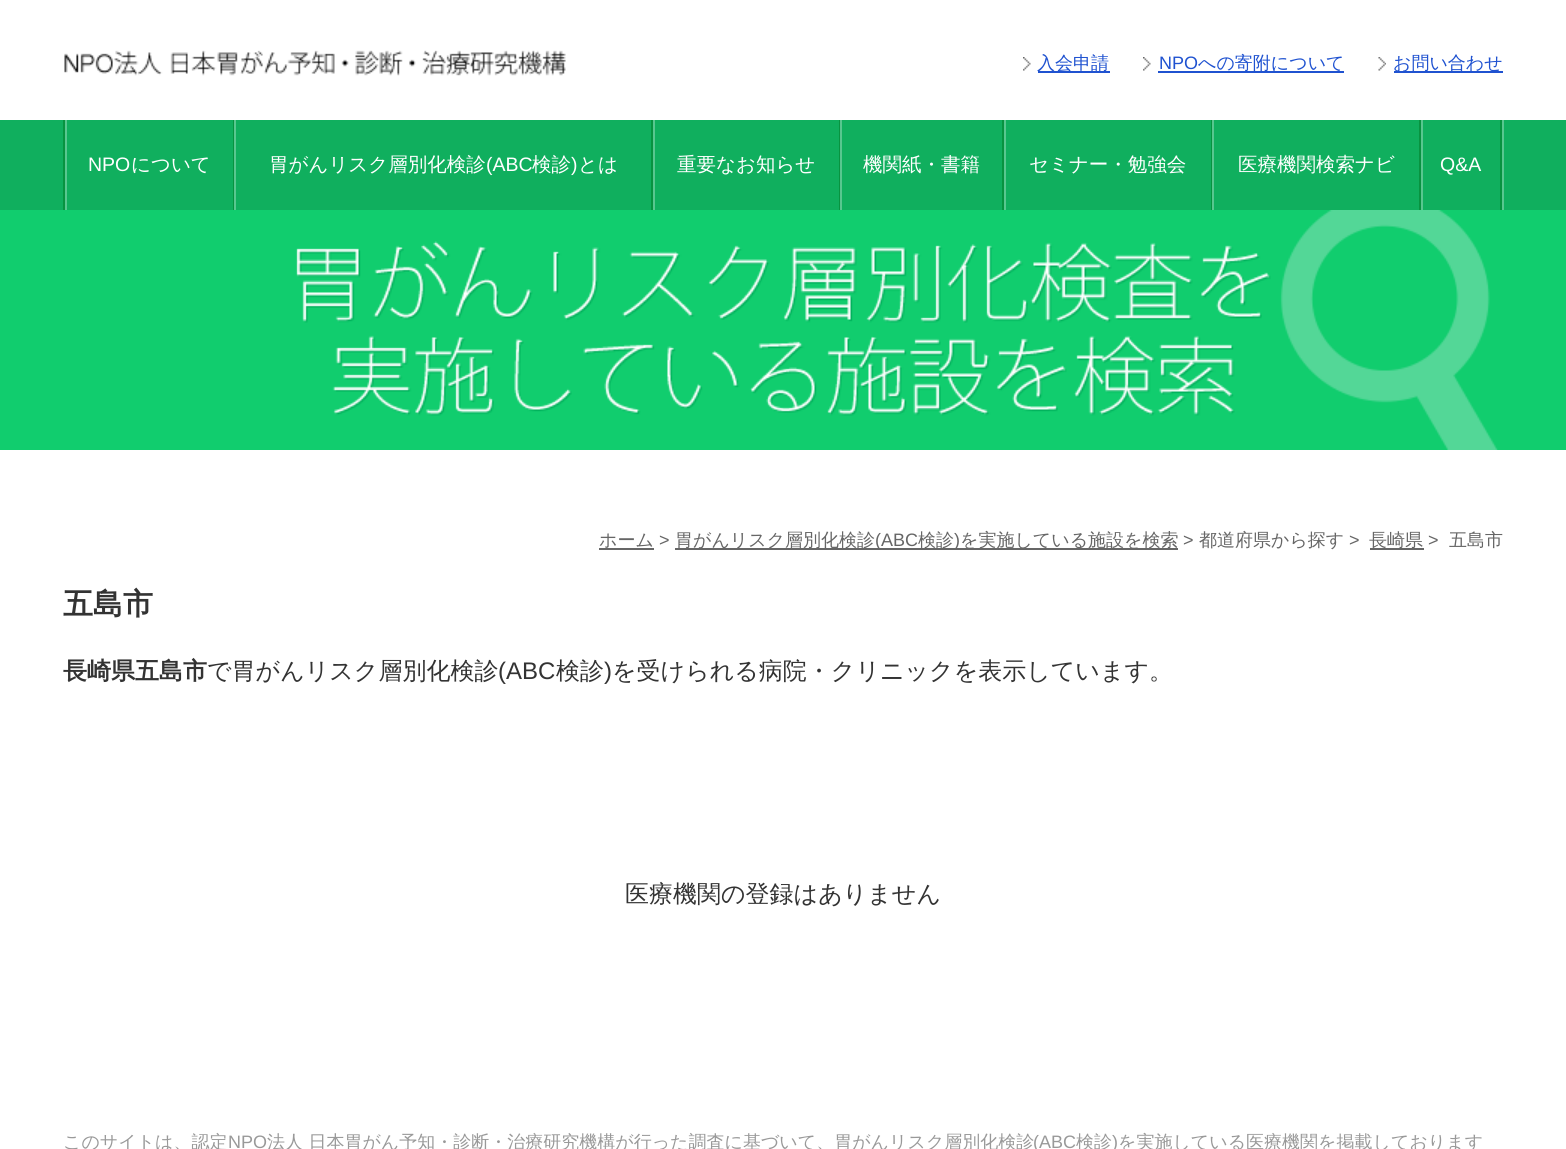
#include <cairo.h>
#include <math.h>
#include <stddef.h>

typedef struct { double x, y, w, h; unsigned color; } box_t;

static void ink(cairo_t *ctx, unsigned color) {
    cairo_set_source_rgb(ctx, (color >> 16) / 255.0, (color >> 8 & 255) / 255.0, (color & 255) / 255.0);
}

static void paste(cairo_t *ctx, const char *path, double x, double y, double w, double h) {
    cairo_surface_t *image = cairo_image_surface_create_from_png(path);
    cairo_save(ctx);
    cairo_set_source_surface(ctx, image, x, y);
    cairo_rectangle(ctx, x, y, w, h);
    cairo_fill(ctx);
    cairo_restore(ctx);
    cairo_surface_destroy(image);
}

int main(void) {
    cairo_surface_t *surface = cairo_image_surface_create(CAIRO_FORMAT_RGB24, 1566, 1149);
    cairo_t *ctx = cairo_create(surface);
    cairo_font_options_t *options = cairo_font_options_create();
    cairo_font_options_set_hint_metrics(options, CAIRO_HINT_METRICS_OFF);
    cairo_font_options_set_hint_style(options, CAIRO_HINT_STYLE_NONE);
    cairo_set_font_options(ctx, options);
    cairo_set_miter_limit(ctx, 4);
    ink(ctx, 0xFFFFFF);
    cairo_paint(ctx);
    paste(ctx, "media/1.png", 64, 50, 502, 26);
    paste(ctx, "media/2.png", 1023, 57, 8, 14);
    ink(ctx, 0x1F52D0);
    cairo_rectangle(ctx, 1038, 71, 72, 2);
    cairo_fill(ctx);
    cairo_select_font_face(ctx, "WenQuanYi Zen Hei Medium", CAIRO_FONT_SLANT_NORMAL, CAIRO_FONT_WEIGHT_NORMAL);
    cairo_set_font_size(ctx, 18);
    cairo_move_to(ctx, 1037, 69);
    cairo_show_text(ctx, "入会申請");
    paste(ctx, "media/2.png", 1143, 57, 8, 14);
    cairo_select_font_face(ctx, "Liberation Sans", CAIRO_FONT_SLANT_NORMAL, CAIRO_FONT_WEIGHT_NORMAL);
    cairo_move_to(ctx, 1159, 69);
    cairo_show_text(ctx, "NPO");
    cairo_rectangle(ctx, 1158, 71, 186, 2);
    cairo_fill(ctx);
    cairo_select_font_face(ctx, "WenQuanYi Zen Hei Medium", CAIRO_FONT_SLANT_NORMAL, CAIRO_FONT_WEIGHT_NORMAL);
    cairo_move_to(ctx, 1198, 69);
    cairo_show_text(ctx, "への寄附について");
    paste(ctx, "media/3.png", 1378, 57, 8, 14);
    cairo_rectangle(ctx, 1394, 71, 109, 2);
    cairo_fill(ctx);
    cairo_move_to(ctx, 1393, 69);
    cairo_show_text(ctx, "お問い合わせ");
    {
        static const box_t items[] = {
            {0, 120, 1566, 90, 0x10AF5E},
            {1502, 120, 2, 90, 0x58C78F},
            {63, 120, 2, 90, 0x089340},
            {233, 120, 1, 90, 0x089340},
            {65, 120, 2, 90, 0x58C78F},
        };
        for (size_t i = 0; i < sizeof items / sizeof *items; i++) {
            ink(ctx, items[i].color);
            cairo_rectangle(ctx, items[i].x, items[i].y, items[i].w, items[i].h);
            cairo_fill(ctx);
        }
    }
    cairo_select_font_face(ctx, "Liberation Sans", CAIRO_FONT_SLANT_NORMAL, CAIRO_FONT_WEIGHT_NORMAL);
    cairo_set_font_size(ctx, 19.5);
    ink(ctx, 0xFFFFFF);
    cairo_move_to(ctx, 88, 171);
    cairo_show_text(ctx, "NPO");
    cairo_select_font_face(ctx, "WenQuanYi Zen Hei Medium", CAIRO_FONT_SLANT_NORMAL, CAIRO_FONT_WEIGHT_NORMAL);
    cairo_move_to(ctx, 131, 171);
    cairo_show_text(ctx, "について");
    ink(ctx, 0x089340);
    cairo_rectangle(ctx, 651, 120, 2, 90);
    cairo_fill(ctx);
    ink(ctx, 0x58C78F);
    cairo_rectangle(ctx, 234, 120, 2, 90);
    cairo_fill(ctx);
    ink(ctx, 0xFFFFFF);
    cairo_move_to(ctx, 269, 171);
    cairo_show_text(ctx, "胃がんリスク層別化検診");
    cairo_select_font_face(ctx, "Liberation Sans", CAIRO_FONT_SLANT_NORMAL, CAIRO_FONT_WEIGHT_NORMAL);
    cairo_move_to(ctx, 486, 171);
    cairo_show_text(ctx, "(ABC");
    cairo_select_font_face(ctx, "WenQuanYi Zen Hei Medium", CAIRO_FONT_SLANT_NORMAL, CAIRO_FONT_WEIGHT_NORMAL);
    cairo_move_to(ctx, 532, 171);
    cairo_show_text(ctx, "検診");
    cairo_select_font_face(ctx, "Liberation Sans", CAIRO_FONT_SLANT_NORMAL, CAIRO_FONT_WEIGHT_NORMAL);
    cairo_move_to(ctx, 571, 171);
    cairo_show_text(ctx, ")");
    cairo_select_font_face(ctx, "WenQuanYi Zen Hei Medium", CAIRO_FONT_SLANT_NORMAL, CAIRO_FONT_WEIGHT_NORMAL);
    cairo_move_to(ctx, 578, 171);
    cairo_show_text(ctx, "とは");
    ink(ctx, 0x089340);
    cairo_rectangle(ctx, 839, 120, 1, 90);
    cairo_fill(ctx);
    ink(ctx, 0x58C78F);
    cairo_rectangle(ctx, 653, 120, 2, 90);
    cairo_fill(ctx);
    ink(ctx, 0xFFFFFF);
    cairo_move_to(ctx, 677, 171);
    cairo_show_text(ctx, "重要なお知らせ");
    ink(ctx, 0x089340);
    cairo_rectangle(ctx, 1002, 120, 2, 90);
    cairo_fill(ctx);
    ink(ctx, 0x58C78F);
    cairo_rectangle(ctx, 840, 120, 2, 90);
    cairo_fill(ctx);
    ink(ctx, 0xFFFFFF);
    cairo_move_to(ctx, 863, 171);
    cairo_show_text(ctx, "機関紙・書籍");
    ink(ctx, 0x089340);
    cairo_rectangle(ctx, 1211, 120, 1, 90);
    cairo_fill(ctx);
    ink(ctx, 0x58C78F);
    cairo_rectangle(ctx, 1004, 120, 2, 90);
    cairo_fill(ctx);
    ink(ctx, 0xFFFFFF);
    cairo_move_to(ctx, 1029, 171);
    cairo_show_text(ctx, "セミナー・勉強会");
    ink(ctx, 0x089340);
    cairo_rectangle(ctx, 1419, 120, 2, 90);
    cairo_fill(ctx);
    ink(ctx, 0x58C78F);
    cairo_rectangle(ctx, 1212, 120, 2, 90);
    cairo_fill(ctx);
    ink(ctx, 0xFFFFFF);
    cairo_move_to(ctx, 1238, 171);
    cairo_show_text(ctx, "医療機関検索ナビ");
    ink(ctx, 0x089340);
    cairo_rectangle(ctx, 1500, 120, 2, 90);
    cairo_fill(ctx);
    ink(ctx, 0x58C78F);
    cairo_rectangle(ctx, 1421, 120, 2, 90);
    cairo_fill(ctx);
    cairo_select_font_face(ctx, "Liberation Sans", CAIRO_FONT_SLANT_NORMAL, CAIRO_FONT_WEIGHT_NORMAL);
    ink(ctx, 0xFFFFFF);
    cairo_move_to(ctx, 1440, 171);
    cairo_show_text(ctx, "Q&A");
    ink(ctx, 0x11CD6E);
    cairo_rectangle(ctx, 0, 210, 1566, 240);
    cairo_fill(ctx);
    paste(ctx, "media/4.png", 296, 210, 1202, 240);
    cairo_select_font_face(ctx, "WenQuanYi Zen Hei Medium", CAIRO_FONT_SLANT_NORMAL, CAIRO_FONT_WEIGHT_NORMAL);
    cairo_set_font_size(ctx, 18);
    ink(ctx, 0x666666);
    cairo_move_to(ctx, 599, 546);
    cairo_show_text(ctx, "ホーム");
    cairo_rectangle(ctx, 599, 548, 55, 2);
    cairo_fill(ctx);
    cairo_select_font_face(ctx, "Liberation Sans", CAIRO_FONT_SLANT_NORMAL, CAIRO_FONT_WEIGHT_NORMAL);
    cairo_move_to(ctx, 659, 546);
    cairo_show_text(ctx, ">");
    cairo_rectangle(ctx, 675, 548, 503, 2);
    cairo_fill(ctx);
    cairo_select_font_face(ctx, "WenQuanYi Zen Hei Medium", CAIRO_FONT_SLANT_NORMAL, CAIRO_FONT_WEIGHT_NORMAL);
    cairo_move_to(ctx, 675, 546);
    cairo_show_text(ctx, "胃がんリスク層別化検診");
    cairo_select_font_face(ctx, "Liberation Sans", CAIRO_FONT_SLANT_NORMAL, CAIRO_FONT_WEIGHT_NORMAL);
    cairo_move_to(ctx, 875, 546);
    cairo_show_text(ctx, "(ABC");
    cairo_select_font_face(ctx, "WenQuanYi Zen Hei Medium", CAIRO_FONT_SLANT_NORMAL, CAIRO_FONT_WEIGHT_NORMAL);
    cairo_move_to(ctx, 918, 546);
    cairo_show_text(ctx, "検診");
    cairo_select_font_face(ctx, "Liberation Sans", CAIRO_FONT_SLANT_NORMAL, CAIRO_FONT_WEIGHT_NORMAL);
    cairo_move_to(ctx, 954, 546);
    cairo_show_text(ctx, ")");
    cairo_select_font_face(ctx, "WenQuanYi Zen Hei Medium", CAIRO_FONT_SLANT_NORMAL, CAIRO_FONT_WEIGHT_NORMAL);
    cairo_move_to(ctx, 960, 546);
    cairo_show_text(ctx, "を実施している施設を検索");
    cairo_select_font_face(ctx, "Liberation Sans", CAIRO_FONT_SLANT_NORMAL, CAIRO_FONT_WEIGHT_NORMAL);
    cairo_move_to(ctx, 1183, 546);
    cairo_show_text(ctx, ">");
    cairo_select_font_face(ctx, "WenQuanYi Zen Hei Medium", CAIRO_FONT_SLANT_NORMAL, CAIRO_FONT_WEIGHT_NORMAL);
    cairo_move_to(ctx, 1199, 546);
    cairo_show_text(ctx, "都道府県から探す");
    cairo_select_font_face(ctx, "Liberation Sans", CAIRO_FONT_SLANT_NORMAL, CAIRO_FONT_WEIGHT_NORMAL);
    cairo_move_to(ctx, 1349, 546);
    cairo_show_text(ctx, ">");
    cairo_rectangle(ctx, 1370, 548, 54, 2);
    cairo_fill(ctx);
    cairo_select_font_face(ctx, "WenQuanYi Zen Hei Medium", CAIRO_FONT_SLANT_NORMAL, CAIRO_FONT_WEIGHT_NORMAL);
    cairo_move_to(ctx, 1369, 546);
    cairo_show_text(ctx, "長崎県");
    cairo_select_font_face(ctx, "Liberation Sans", CAIRO_FONT_SLANT_NORMAL, CAIRO_FONT_WEIGHT_NORMAL);
    cairo_move_to(ctx, 1428, 546);
    cairo_show_text(ctx, ">");
    cairo_select_font_face(ctx, "WenQuanYi Zen Hei Medium", CAIRO_FONT_SLANT_NORMAL, CAIRO_FONT_WEIGHT_NORMAL);
    cairo_move_to(ctx, 1449, 546);
    cairo_show_text(ctx, "五島市");
    cairo_select_font_face(ctx, "WenQuanYi Zen Hei", CAIRO_FONT_SLANT_NORMAL, CAIRO_FONT_WEIGHT_BOLD);
    cairo_set_font_size(ctx, 30);
    ink(ctx, 0x333333);
    cairo_move_to(ctx, 63, 614);
    cairo_show_text(ctx, "五島市");
    cairo_set_font_size(ctx, 24);
    cairo_move_to(ctx, 63, 679);
    cairo_show_text(ctx, "長崎県五島市");
    cairo_select_font_face(ctx, "WenQuanYi Zen Hei Medium", CAIRO_FONT_SLANT_NORMAL, CAIRO_FONT_WEIGHT_NORMAL);
    cairo_move_to(ctx, 207, 679);
    cairo_show_text(ctx, "で胃がんリスク層別化検診");
    cairo_select_font_face(ctx, "Liberation Sans", CAIRO_FONT_SLANT_NORMAL, CAIRO_FONT_WEIGHT_NORMAL);
    cairo_move_to(ctx, 498, 679);
    cairo_show_text(ctx, "(ABC");
    cairo_select_font_face(ctx, "WenQuanYi Zen Hei Medium", CAIRO_FONT_SLANT_NORMAL, CAIRO_FONT_WEIGHT_NORMAL);
    cairo_move_to(ctx, 556, 679);
    cairo_show_text(ctx, "検診");
    cairo_select_font_face(ctx, "Liberation Sans", CAIRO_FONT_SLANT_NORMAL, CAIRO_FONT_WEIGHT_NORMAL);
    cairo_move_to(ctx, 604, 679);
    cairo_show_text(ctx, ")");
    cairo_select_font_face(ctx, "WenQuanYi Zen Hei Medium", CAIRO_FONT_SLANT_NORMAL, CAIRO_FONT_WEIGHT_NORMAL);
    cairo_move_to(ctx, 612, 679);
    cairo_show_text(ctx, "を受けられる病院・クリニックを表示しています。");
    cairo_move_to(ctx, 625, 902);
    cairo_show_text(ctx, "医療機関の登録はありません");
    cairo_set_font_size(ctx, 18);
    ink(ctx, 0x999999);
    cairo_move_to(ctx, 63, 1148);
    cairo_show_text(ctx, "このサイトは、認定");
    cairo_select_font_face(ctx, "Liberation Sans", CAIRO_FONT_SLANT_NORMAL, CAIRO_FONT_WEIGHT_NORMAL);
    cairo_move_to(ctx, 228, 1148);
    cairo_show_text(ctx, "NPO");
    cairo_select_font_face(ctx, "WenQuanYi Zen Hei Medium", CAIRO_FONT_SLANT_NORMAL, CAIRO_FONT_WEIGHT_NORMAL);
    cairo_move_to(ctx, 267, 1148);
    cairo_show_text(ctx, "法人 日本胃がん予知・診断・治療研究機構が行った調査に基づいて、胃がんリスク層別化検診");
    cairo_select_font_face(ctx, "Liberation Sans", CAIRO_FONT_SLANT_NORMAL, CAIRO_FONT_WEIGHT_NORMAL);
    cairo_move_to(ctx, 1033, 1148);
    cairo_show_text(ctx, "(ABC");
    cairo_select_font_face(ctx, "WenQuanYi Zen Hei Medium", CAIRO_FONT_SLANT_NORMAL, CAIRO_FONT_WEIGHT_NORMAL);
    cairo_move_to(ctx, 1076, 1148);
    cairo_show_text(ctx, "検診");
    cairo_select_font_face(ctx, "Liberation Sans", CAIRO_FONT_SLANT_NORMAL, CAIRO_FONT_WEIGHT_NORMAL);
    cairo_move_to(ctx, 1112, 1148);
    cairo_show_text(ctx, ")");
    cairo_select_font_face(ctx, "WenQuanYi Zen Hei Medium", CAIRO_FONT_SLANT_NORMAL, CAIRO_FONT_WEIGHT_NORMAL);
    cairo_move_to(ctx, 1118, 1148);
    cairo_show_text(ctx, "を実施している医療機関を掲載しております");
    cairo_surface_write_to_png(surface, "image.png");
    cairo_font_options_destroy(options);
    cairo_destroy(ctx);
    cairo_surface_destroy(surface);
    return 0;
}
